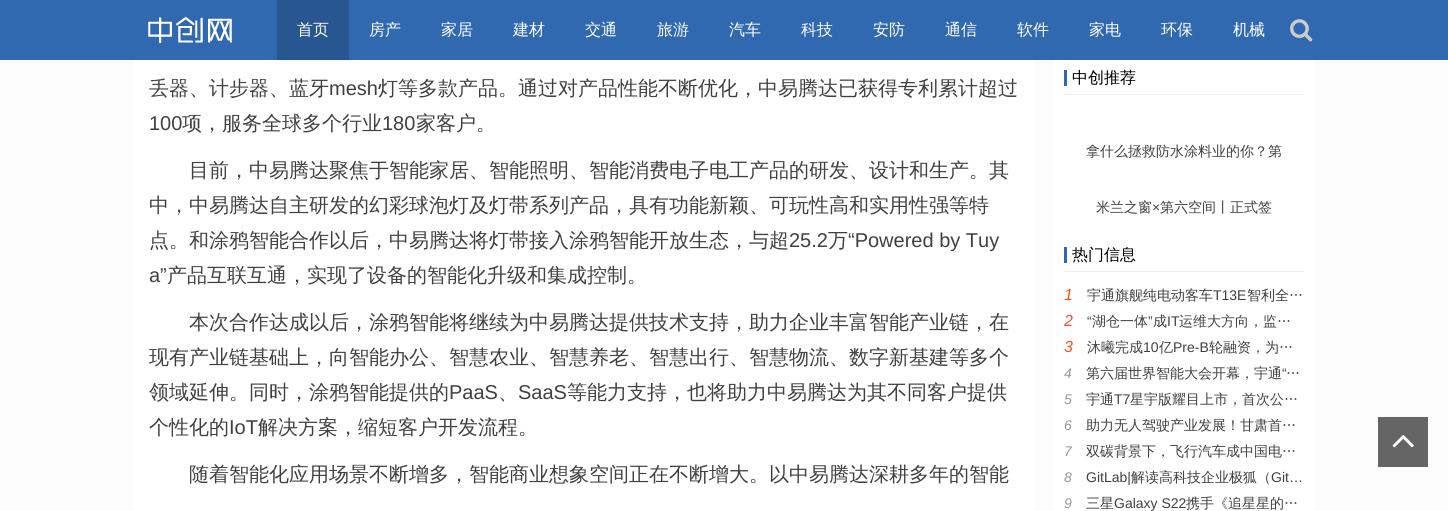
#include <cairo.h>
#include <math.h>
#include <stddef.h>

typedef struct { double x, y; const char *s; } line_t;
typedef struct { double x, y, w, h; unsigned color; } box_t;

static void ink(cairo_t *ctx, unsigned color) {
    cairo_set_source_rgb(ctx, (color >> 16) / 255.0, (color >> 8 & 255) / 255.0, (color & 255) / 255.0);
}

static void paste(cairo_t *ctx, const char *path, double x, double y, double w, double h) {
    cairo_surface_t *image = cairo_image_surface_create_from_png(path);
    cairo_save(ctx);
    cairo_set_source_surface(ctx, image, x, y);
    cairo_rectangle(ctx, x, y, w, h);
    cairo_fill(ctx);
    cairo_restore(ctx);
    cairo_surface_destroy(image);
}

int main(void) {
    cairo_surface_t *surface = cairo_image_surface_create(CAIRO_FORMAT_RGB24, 1448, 511);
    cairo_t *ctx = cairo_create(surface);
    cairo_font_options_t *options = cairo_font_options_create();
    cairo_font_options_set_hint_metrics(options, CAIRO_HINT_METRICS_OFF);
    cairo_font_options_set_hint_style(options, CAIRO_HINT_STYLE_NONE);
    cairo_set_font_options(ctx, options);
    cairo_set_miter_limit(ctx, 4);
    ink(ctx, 0xFDFCFC);
    cairo_paint(ctx);
    ink(ctx, 0x3169B0);
    cairo_rectangle(ctx, 0, 0, 1448, 60);
    cairo_fill(ctx);
    paste(ctx, "media/1.png", 148, 16, 84, 27);
    ink(ctx, 0x285690);
    cairo_rectangle(ctx, 277, 0, 72, 60);
    cairo_fill(ctx);
    cairo_select_font_face(ctx, "WenQuanYi Zen Hei Medium", CAIRO_FONT_SLANT_NORMAL, CAIRO_FONT_WEIGHT_NORMAL);
    cairo_set_font_size(ctx, 16);
    ink(ctx, 0xFFFFFF);
    {
        static const line_t items[] = {
            {297, 35, "首页"},
            {369, 35, "房产"},
            {441, 35, "家居"},
            {513, 35, "建材"},
            {585, 35, "交通"},
            {657, 35, "旅游"},
            {729, 35, "汽车"},
            {801, 35, "科技"},
            {873, 35, "安防"},
            {945, 35, "通信"},
            {1017, 35, "软件"},
            {1089, 35, "家电"},
            {1161, 35, "环保"},
            {1233, 35, "机械"},
        };
        for (size_t i = 0; i < sizeof items / sizeof *items; i++) {
            cairo_move_to(ctx, items[i].x, items[i].y);
            cairo_show_text(ctx, items[i].s);
        }
    }
    paste(ctx, "media/2.png", 1290, 19, 23, 23);
    cairo_rectangle(ctx, 134, 60, 900, 451);
    cairo_fill(ctx);
    cairo_set_font_size(ctx, 20);
    ink(ctx, 0x404040);
    cairo_move_to(ctx, 149, 95);
    cairo_show_text(ctx, "丢器、计步器、蓝牙");
    cairo_select_font_face(ctx, "Liberation Sans", CAIRO_FONT_SLANT_NORMAL, CAIRO_FONT_WEIGHT_NORMAL);
    cairo_move_to(ctx, 329, 95);
    cairo_show_text(ctx, "mesh");
    cairo_select_font_face(ctx, "WenQuanYi Zen Hei Medium", CAIRO_FONT_SLANT_NORMAL, CAIRO_FONT_WEIGHT_NORMAL);
    cairo_move_to(ctx, 378, 95);
    cairo_show_text(ctx, "灯等多款产品。通过对产品性能不断优化，中易腾达已获得专利累计超过");
    cairo_select_font_face(ctx, "Liberation Sans", CAIRO_FONT_SLANT_NORMAL, CAIRO_FONT_WEIGHT_NORMAL);
    cairo_move_to(ctx, 149, 130);
    cairo_show_text(ctx, "100");
    cairo_select_font_face(ctx, "WenQuanYi Zen Hei Medium", CAIRO_FONT_SLANT_NORMAL, CAIRO_FONT_WEIGHT_NORMAL);
    cairo_move_to(ctx, 182, 130);
    cairo_show_text(ctx, "项，服务全球多个行业");
    cairo_select_font_face(ctx, "Liberation Sans", CAIRO_FONT_SLANT_NORMAL, CAIRO_FONT_WEIGHT_NORMAL);
    cairo_move_to(ctx, 382, 130);
    cairo_show_text(ctx, "180");
    cairo_select_font_face(ctx, "WenQuanYi Zen Hei Medium", CAIRO_FONT_SLANT_NORMAL, CAIRO_FONT_WEIGHT_NORMAL);
    {
        static const line_t items[] = {
            {416, 130, "家客户。"},
            {189, 177, "目前，中易腾达聚焦于智能家居、智能照明、智能消费电子电工产品的研发、设计和生产。其"},
            {149, 212, "中，中易腾达自主研发的幻彩球泡灯及灯带系列产品，具有功能新颖、可玩性高和实用性强等特"},
            {149, 247, "点。和涂鸦智能合作以后，中易腾达将灯带接入涂鸦智能开放生态，与超"},
        };
        for (size_t i = 0; i < sizeof items / sizeof *items; i++) {
            cairo_move_to(ctx, items[i].x, items[i].y);
            cairo_show_text(ctx, items[i].s);
        }
    }
    cairo_select_font_face(ctx, "Liberation Sans", CAIRO_FONT_SLANT_NORMAL, CAIRO_FONT_WEIGHT_NORMAL);
    cairo_move_to(ctx, 789, 247);
    cairo_show_text(ctx, "25.2");
    cairo_select_font_face(ctx, "WenQuanYi Zen Hei Medium", CAIRO_FONT_SLANT_NORMAL, CAIRO_FONT_WEIGHT_NORMAL);
    cairo_move_to(ctx, 828, 247);
    cairo_show_text(ctx, "万");
    cairo_select_font_face(ctx, "Liberation Sans", CAIRO_FONT_SLANT_NORMAL, CAIRO_FONT_WEIGHT_NORMAL);
    cairo_move_to(ctx, 848, 247);
    cairo_show_text(ctx, "“Powered by Tuy");
    cairo_move_to(ctx, 149, 282);
    cairo_show_text(ctx, "a”");
    cairo_select_font_face(ctx, "WenQuanYi Zen Hei Medium", CAIRO_FONT_SLANT_NORMAL, CAIRO_FONT_WEIGHT_NORMAL);
    {
        static const line_t items[] = {
            {167, 282, "产品互联互通，实现了设备的智能化升级和集成控制。"},
            {189, 329, "本次合作达成以后，涂鸦智能将继续为中易腾达提供技术支持，助力企业丰富智能产业链，在"},
            {149, 364, "现有产业链基础上，向智能办公、智慧农业、智慧养老、智慧出行、智慧物流、数字新基建等多个"},
            {149, 399, "领域延伸。同时，涂鸦智能提供的"},
        };
        for (size_t i = 0; i < sizeof items / sizeof *items; i++) {
            cairo_move_to(ctx, items[i].x, items[i].y);
            cairo_show_text(ctx, items[i].s);
        }
    }
    cairo_select_font_face(ctx, "Liberation Sans", CAIRO_FONT_SLANT_NORMAL, CAIRO_FONT_WEIGHT_NORMAL);
    cairo_move_to(ctx, 449, 399);
    cairo_show_text(ctx, "PaaS");
    cairo_select_font_face(ctx, "WenQuanYi Zen Hei Medium", CAIRO_FONT_SLANT_NORMAL, CAIRO_FONT_WEIGHT_NORMAL);
    cairo_move_to(ctx, 498, 399);
    cairo_show_text(ctx, "、");
    cairo_select_font_face(ctx, "Liberation Sans", CAIRO_FONT_SLANT_NORMAL, CAIRO_FONT_WEIGHT_NORMAL);
    cairo_move_to(ctx, 518, 399);
    cairo_show_text(ctx, "SaaS");
    cairo_select_font_face(ctx, "WenQuanYi Zen Hei Medium", CAIRO_FONT_SLANT_NORMAL, CAIRO_FONT_WEIGHT_NORMAL);
    cairo_move_to(ctx, 567, 399);
    cairo_show_text(ctx, "等能力支持，也将助力中易腾达为其不同客户提供");
    cairo_move_to(ctx, 149, 434);
    cairo_show_text(ctx, "个性化的");
    cairo_select_font_face(ctx, "Liberation Sans", CAIRO_FONT_SLANT_NORMAL, CAIRO_FONT_WEIGHT_NORMAL);
    cairo_move_to(ctx, 229, 434);
    cairo_show_text(ctx, "IoT");
    cairo_select_font_face(ctx, "WenQuanYi Zen Hei Medium", CAIRO_FONT_SLANT_NORMAL, CAIRO_FONT_WEIGHT_NORMAL);
    cairo_move_to(ctx, 258, 434);
    cairo_show_text(ctx, "解决方案，缩短客户开发流程。");
    cairo_move_to(ctx, 189, 481);
    cairo_show_text(ctx, "随着智能化应用场景不断增多，智能商业想象空间正在不断增大。以中易腾达深耕多年的智能");
    {
        static const box_t items[] = {
            {1054, 60, 260, 451, 0xFFFFFF},
            {1064, 94, 240, 1, 0xEEEEEE},
            {1064, 70, 3, 16, 0x3169B0},
        };
        for (size_t i = 0; i < sizeof items / sizeof *items; i++) {
            ink(ctx, items[i].color);
            cairo_rectangle(ctx, items[i].x, items[i].y, items[i].w, items[i].h);
            cairo_fill(ctx);
        }
    }
    cairo_set_font_size(ctx, 16);
    ink(ctx, 0x000000);
    cairo_move_to(ctx, 1072, 83);
    cairo_show_text(ctx, "中创推荐");
    cairo_set_font_size(ctx, 14);
    ink(ctx, 0x404040);
    cairo_move_to(ctx, 1086, 156);
    cairo_show_text(ctx, "拿什么拯救防水涂料业的你？第");
    cairo_move_to(ctx, 1096, 212);
    cairo_show_text(ctx, "米兰之窗");
    cairo_select_font_face(ctx, "Liberation Sans", CAIRO_FONT_SLANT_NORMAL, CAIRO_FONT_WEIGHT_NORMAL);
    cairo_move_to(ctx, 1152, 212);
    cairo_show_text(ctx, "×");
    cairo_select_font_face(ctx, "WenQuanYi Zen Hei Medium", CAIRO_FONT_SLANT_NORMAL, CAIRO_FONT_WEIGHT_NORMAL);
    cairo_move_to(ctx, 1160, 212);
    cairo_show_text(ctx, "第六空间丨正式签");
    ink(ctx, 0xEEEEEE);
    cairo_rectangle(ctx, 1064, 271, 240, 1);
    cairo_fill(ctx);
    ink(ctx, 0x3169B0);
    cairo_rectangle(ctx, 1064, 247, 3, 16);
    cairo_fill(ctx);
    cairo_set_font_size(ctx, 16);
    ink(ctx, 0x000000);
    cairo_move_to(ctx, 1072, 260);
    cairo_show_text(ctx, "热门信息");
    cairo_select_font_face(ctx, "Liberation Sans", CAIRO_FONT_SLANT_ITALIC, CAIRO_FONT_WEIGHT_NORMAL);
    ink(ctx, 0xF65220);
    cairo_move_to(ctx, 1064, 300);
    cairo_show_text(ctx, "1");
    cairo_select_font_face(ctx, "WenQuanYi Zen Hei Medium", CAIRO_FONT_SLANT_NORMAL, CAIRO_FONT_WEIGHT_NORMAL);
    cairo_set_font_size(ctx, 14);
    ink(ctx, 0x404040);
    cairo_move_to(ctx, 1087, 300);
    cairo_show_text(ctx, "宇通旗舰纯电动客车");
    cairo_select_font_face(ctx, "Liberation Sans", CAIRO_FONT_SLANT_NORMAL, CAIRO_FONT_WEIGHT_NORMAL);
    cairo_move_to(ctx, 1213, 300);
    cairo_show_text(ctx, "T13E");
    cairo_select_font_face(ctx, "WenQuanYi Zen Hei Medium", CAIRO_FONT_SLANT_NORMAL, CAIRO_FONT_WEIGHT_NORMAL);
    cairo_move_to(ctx, 1247, 300);
    cairo_show_text(ctx, "智利全…");
    cairo_select_font_face(ctx, "Liberation Sans", CAIRO_FONT_SLANT_ITALIC, CAIRO_FONT_WEIGHT_NORMAL);
    cairo_set_font_size(ctx, 16);
    ink(ctx, 0xF65220);
    cairo_move_to(ctx, 1064, 326);
    cairo_show_text(ctx, "2");
    cairo_select_font_face(ctx, "Liberation Sans", CAIRO_FONT_SLANT_NORMAL, CAIRO_FONT_WEIGHT_NORMAL);
    cairo_set_font_size(ctx, 14);
    ink(ctx, 0x404040);
    cairo_move_to(ctx, 1087, 326);
    cairo_show_text(ctx, "“");
    cairo_select_font_face(ctx, "WenQuanYi Zen Hei Medium", CAIRO_FONT_SLANT_NORMAL, CAIRO_FONT_WEIGHT_NORMAL);
    cairo_move_to(ctx, 1092, 326);
    cairo_show_text(ctx, "湖仓一体");
    cairo_select_font_face(ctx, "Liberation Sans", CAIRO_FONT_SLANT_NORMAL, CAIRO_FONT_WEIGHT_NORMAL);
    cairo_move_to(ctx, 1148, 326);
    cairo_show_text(ctx, "”");
    cairo_select_font_face(ctx, "WenQuanYi Zen Hei Medium", CAIRO_FONT_SLANT_NORMAL, CAIRO_FONT_WEIGHT_NORMAL);
    cairo_move_to(ctx, 1153, 326);
    cairo_show_text(ctx, "成");
    cairo_select_font_face(ctx, "Liberation Sans", CAIRO_FONT_SLANT_NORMAL, CAIRO_FONT_WEIGHT_NORMAL);
    cairo_move_to(ctx, 1167, 326);
    cairo_show_text(ctx, "IT");
    cairo_select_font_face(ctx, "WenQuanYi Zen Hei Medium", CAIRO_FONT_SLANT_NORMAL, CAIRO_FONT_WEIGHT_NORMAL);
    cairo_move_to(ctx, 1179, 326);
    cairo_show_text(ctx, "运维大方向，监…");
    cairo_select_font_face(ctx, "Liberation Sans", CAIRO_FONT_SLANT_ITALIC, CAIRO_FONT_WEIGHT_NORMAL);
    cairo_set_font_size(ctx, 16);
    ink(ctx, 0xF65220);
    cairo_move_to(ctx, 1064, 352);
    cairo_show_text(ctx, "3");
    cairo_select_font_face(ctx, "WenQuanYi Zen Hei Medium", CAIRO_FONT_SLANT_NORMAL, CAIRO_FONT_WEIGHT_NORMAL);
    cairo_set_font_size(ctx, 14);
    ink(ctx, 0x404040);
    cairo_move_to(ctx, 1087, 352);
    cairo_show_text(ctx, "沐曦完成");
    cairo_select_font_face(ctx, "Liberation Sans", CAIRO_FONT_SLANT_NORMAL, CAIRO_FONT_WEIGHT_NORMAL);
    cairo_move_to(ctx, 1143, 352);
    cairo_show_text(ctx, "10");
    cairo_select_font_face(ctx, "WenQuanYi Zen Hei Medium", CAIRO_FONT_SLANT_NORMAL, CAIRO_FONT_WEIGHT_NORMAL);
    cairo_move_to(ctx, 1159, 352);
    cairo_show_text(ctx, "亿");
    cairo_select_font_face(ctx, "Liberation Sans", CAIRO_FONT_SLANT_NORMAL, CAIRO_FONT_WEIGHT_NORMAL);
    cairo_move_to(ctx, 1173, 352);
    cairo_show_text(ctx, "Pre-B");
    cairo_select_font_face(ctx, "WenQuanYi Zen Hei Medium", CAIRO_FONT_SLANT_NORMAL, CAIRO_FONT_WEIGHT_NORMAL);
    cairo_move_to(ctx, 1209, 352);
    cairo_show_text(ctx, "轮融资，为…");
    cairo_select_font_face(ctx, "Liberation Sans", CAIRO_FONT_SLANT_ITALIC, CAIRO_FONT_WEIGHT_NORMAL);
    ink(ctx, 0x999999);
    cairo_move_to(ctx, 1064, 378);
    cairo_show_text(ctx, "4");
    cairo_select_font_face(ctx, "WenQuanYi Zen Hei Medium", CAIRO_FONT_SLANT_NORMAL, CAIRO_FONT_WEIGHT_NORMAL);
    ink(ctx, 0x404040);
    cairo_move_to(ctx, 1086, 378);
    cairo_show_text(ctx, "第六届世界智能大会开幕，宇通");
    cairo_select_font_face(ctx, "Liberation Sans", CAIRO_FONT_SLANT_NORMAL, CAIRO_FONT_WEIGHT_NORMAL);
    cairo_move_to(ctx, 1282, 378);
    cairo_show_text(ctx, "“");
    cairo_select_font_face(ctx, "WenQuanYi Zen Hei Medium", CAIRO_FONT_SLANT_NORMAL, CAIRO_FONT_WEIGHT_NORMAL);
    cairo_move_to(ctx, 1286, 378);
    cairo_show_text(ctx, "…");
    cairo_select_font_face(ctx, "Liberation Sans", CAIRO_FONT_SLANT_ITALIC, CAIRO_FONT_WEIGHT_NORMAL);
    ink(ctx, 0x999999);
    cairo_move_to(ctx, 1064, 404);
    cairo_show_text(ctx, "5");
    cairo_select_font_face(ctx, "WenQuanYi Zen Hei Medium", CAIRO_FONT_SLANT_NORMAL, CAIRO_FONT_WEIGHT_NORMAL);
    ink(ctx, 0x404040);
    cairo_move_to(ctx, 1086, 404);
    cairo_show_text(ctx, "宇通");
    cairo_select_font_face(ctx, "Liberation Sans", CAIRO_FONT_SLANT_NORMAL, CAIRO_FONT_WEIGHT_NORMAL);
    cairo_move_to(ctx, 1114, 404);
    cairo_show_text(ctx, "T7");
    cairo_select_font_face(ctx, "WenQuanYi Zen Hei Medium", CAIRO_FONT_SLANT_NORMAL, CAIRO_FONT_WEIGHT_NORMAL);
    cairo_move_to(ctx, 1130, 404);
    cairo_show_text(ctx, "星宇版耀目上市，首次公…");
    cairo_select_font_face(ctx, "Liberation Sans", CAIRO_FONT_SLANT_ITALIC, CAIRO_FONT_WEIGHT_NORMAL);
    ink(ctx, 0x999999);
    cairo_move_to(ctx, 1064, 430);
    cairo_show_text(ctx, "6");
    cairo_select_font_face(ctx, "WenQuanYi Zen Hei Medium", CAIRO_FONT_SLANT_NORMAL, CAIRO_FONT_WEIGHT_NORMAL);
    ink(ctx, 0x404040);
    cairo_move_to(ctx, 1086, 430);
    cairo_show_text(ctx, "助力无人驾驶产业发展！甘肃首…");
    cairo_select_font_face(ctx, "Liberation Sans", CAIRO_FONT_SLANT_ITALIC, CAIRO_FONT_WEIGHT_NORMAL);
    ink(ctx, 0x999999);
    cairo_move_to(ctx, 1064, 456);
    cairo_show_text(ctx, "7");
    cairo_select_font_face(ctx, "WenQuanYi Zen Hei Medium", CAIRO_FONT_SLANT_NORMAL, CAIRO_FONT_WEIGHT_NORMAL);
    ink(ctx, 0x404040);
    cairo_move_to(ctx, 1086, 456);
    cairo_show_text(ctx, "双碳背景下，飞行汽车成中国电…");
    cairo_select_font_face(ctx, "Liberation Sans", CAIRO_FONT_SLANT_ITALIC, CAIRO_FONT_WEIGHT_NORMAL);
    ink(ctx, 0x999999);
    cairo_move_to(ctx, 1064, 482);
    cairo_show_text(ctx, "8");
    cairo_select_font_face(ctx, "Liberation Sans", CAIRO_FONT_SLANT_NORMAL, CAIRO_FONT_WEIGHT_NORMAL);
    ink(ctx, 0x404040);
    cairo_move_to(ctx, 1086, 482);
    cairo_show_text(ctx, "GitLab|");
    cairo_select_font_face(ctx, "WenQuanYi Zen Hei Medium", CAIRO_FONT_SLANT_NORMAL, CAIRO_FONT_WEIGHT_NORMAL);
    cairo_move_to(ctx, 1131, 482);
    cairo_show_text(ctx, "解读高科技企业极狐（");
    cairo_select_font_face(ctx, "Liberation Sans", CAIRO_FONT_SLANT_NORMAL, CAIRO_FONT_WEIGHT_NORMAL);
    cairo_move_to(ctx, 1271, 482);
    cairo_show_text(ctx, "Git…");
    cairo_select_font_face(ctx, "Liberation Sans", CAIRO_FONT_SLANT_ITALIC, CAIRO_FONT_WEIGHT_NORMAL);
    ink(ctx, 0x999999);
    cairo_move_to(ctx, 1064, 508);
    cairo_show_text(ctx, "9");
    cairo_select_font_face(ctx, "WenQuanYi Zen Hei Medium", CAIRO_FONT_SLANT_NORMAL, CAIRO_FONT_WEIGHT_NORMAL);
    ink(ctx, 0x404040);
    cairo_move_to(ctx, 1086, 508);
    cairo_show_text(ctx, "三星");
    cairo_select_font_face(ctx, "Liberation Sans", CAIRO_FONT_SLANT_NORMAL, CAIRO_FONT_WEIGHT_NORMAL);
    cairo_move_to(ctx, 1114, 508);
    cairo_show_text(ctx, "Galaxy S22");
    cairo_select_font_face(ctx, "WenQuanYi Zen Hei Medium", CAIRO_FONT_SLANT_NORMAL, CAIRO_FONT_WEIGHT_NORMAL);
    cairo_move_to(ctx, 1186, 508);
    cairo_show_text(ctx, "携手《追星星的…");
    ink(ctx, 0x656565);
    cairo_rectangle(ctx, 1378, 417, 50, 50);
    cairo_fill(ctx);
    paste(ctx, "media/3.png", 1392, 435, 22, 13);
    cairo_surface_write_to_png(surface, "image.png");
    cairo_font_options_destroy(options);
    cairo_destroy(ctx);
    cairo_surface_destroy(surface);
    return 0;
}
